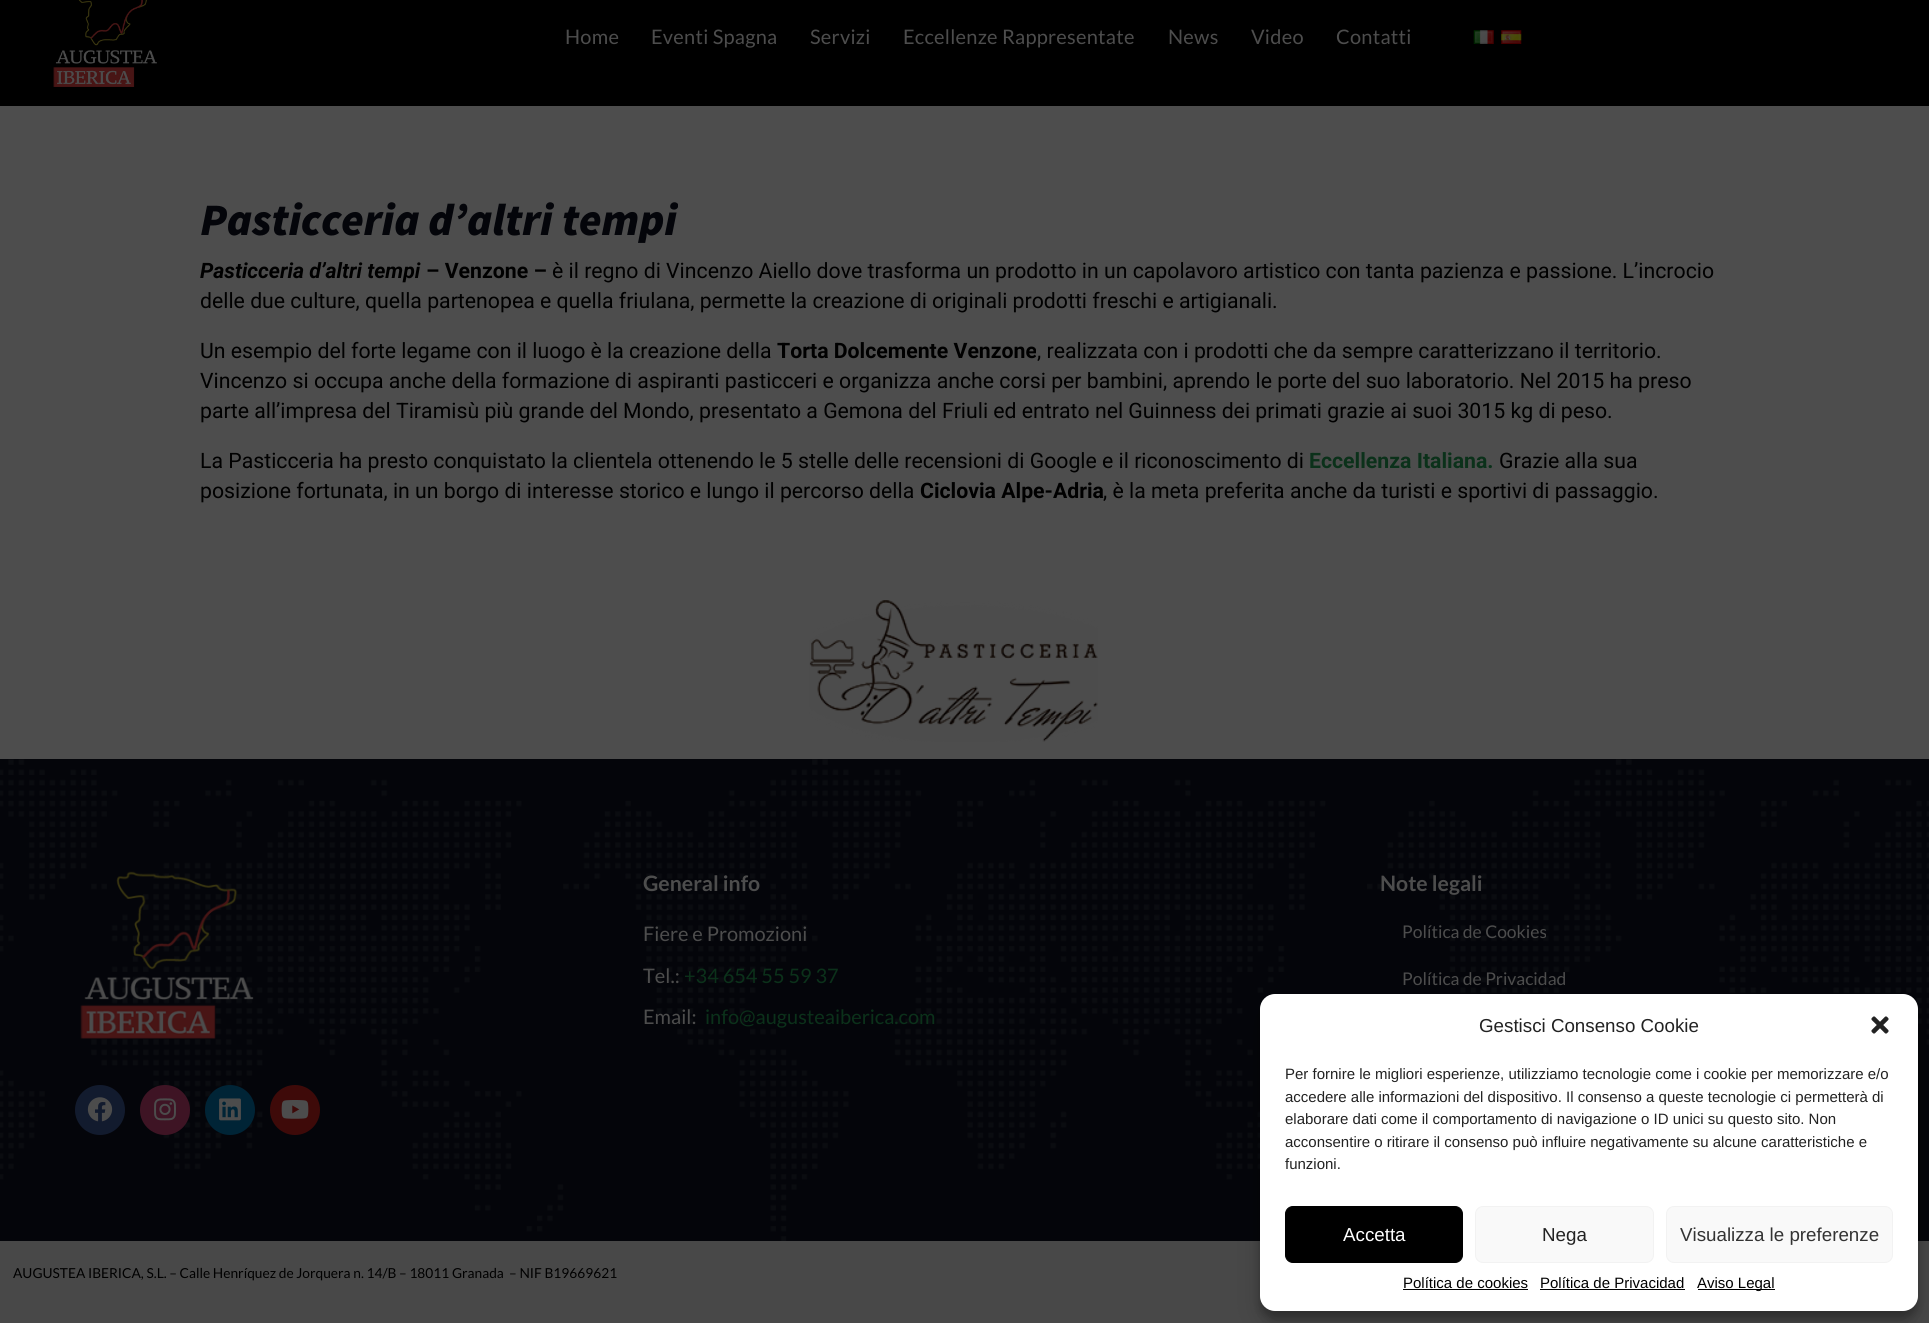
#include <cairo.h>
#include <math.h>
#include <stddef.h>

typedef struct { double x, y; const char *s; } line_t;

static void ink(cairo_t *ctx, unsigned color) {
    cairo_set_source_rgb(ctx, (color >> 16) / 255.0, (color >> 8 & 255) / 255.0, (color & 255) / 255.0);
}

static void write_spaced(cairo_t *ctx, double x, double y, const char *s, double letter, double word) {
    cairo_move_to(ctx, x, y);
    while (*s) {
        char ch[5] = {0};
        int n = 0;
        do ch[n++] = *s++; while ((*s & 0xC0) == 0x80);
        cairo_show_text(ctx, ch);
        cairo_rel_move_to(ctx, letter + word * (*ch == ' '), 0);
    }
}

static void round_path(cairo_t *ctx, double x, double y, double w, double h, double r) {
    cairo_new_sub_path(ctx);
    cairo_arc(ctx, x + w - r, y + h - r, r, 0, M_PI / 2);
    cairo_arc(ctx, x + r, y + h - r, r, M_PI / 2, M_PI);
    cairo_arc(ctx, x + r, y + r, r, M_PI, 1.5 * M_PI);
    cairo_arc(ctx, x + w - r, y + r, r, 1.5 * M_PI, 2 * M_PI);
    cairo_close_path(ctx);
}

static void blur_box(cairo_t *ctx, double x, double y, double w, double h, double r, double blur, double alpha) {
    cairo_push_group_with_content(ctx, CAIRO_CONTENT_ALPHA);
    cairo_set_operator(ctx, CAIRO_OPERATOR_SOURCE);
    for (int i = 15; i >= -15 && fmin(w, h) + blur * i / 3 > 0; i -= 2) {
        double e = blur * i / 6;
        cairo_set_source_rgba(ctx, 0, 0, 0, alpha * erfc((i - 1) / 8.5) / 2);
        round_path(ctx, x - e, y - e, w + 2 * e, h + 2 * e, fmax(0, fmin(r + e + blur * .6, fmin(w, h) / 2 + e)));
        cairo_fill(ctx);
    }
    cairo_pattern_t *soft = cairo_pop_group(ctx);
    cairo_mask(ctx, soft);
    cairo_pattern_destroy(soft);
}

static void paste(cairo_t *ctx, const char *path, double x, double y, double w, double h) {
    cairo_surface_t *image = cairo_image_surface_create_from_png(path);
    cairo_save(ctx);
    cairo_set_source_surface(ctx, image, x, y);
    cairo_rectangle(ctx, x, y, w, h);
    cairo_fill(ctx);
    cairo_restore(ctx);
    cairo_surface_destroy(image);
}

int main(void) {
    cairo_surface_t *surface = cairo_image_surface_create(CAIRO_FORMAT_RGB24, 1929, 1323);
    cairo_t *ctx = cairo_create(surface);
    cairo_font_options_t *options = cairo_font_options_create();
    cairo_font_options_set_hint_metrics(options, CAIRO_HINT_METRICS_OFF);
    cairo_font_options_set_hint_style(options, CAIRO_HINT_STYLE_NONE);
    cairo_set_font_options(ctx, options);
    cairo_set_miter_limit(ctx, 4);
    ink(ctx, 0x4D4D4D);
    cairo_paint(ctx);
    ink(ctx, 0x000000);
    cairo_rectangle(ctx, 0, 0, 1929, 106);
    cairo_fill(ctx);
    paste(ctx, "media/1.png", 53, 0, 104, 87);
    cairo_select_font_face(ctx, "Lato", CAIRO_FONT_SLANT_NORMAL, CAIRO_FONT_WEIGHT_NORMAL);
    cairo_set_font_size(ctx, 20);
    ink(ctx, 0x4D4D4D);
    {
        static const line_t items[] = {
            {565, 44, "Home"},
            {651, 44, "Eventi Spagna"},
            {810, 44, "Servizi"},
            {903, 44, "Eccellenze Rappresentate"},
            {1168, 44, "News"},
            {1251, 44, "Video"},
            {1336, 44, "Contatti"},
        };
        for (size_t i = 0; i < sizeof items / sizeof *items; i++) {
            write_spaced(ctx, items[i].x, items[i].y, items[i].s, 0.25, 0);
        }
    }
    paste(ctx, "media/2.png", 1473, 30, 21, 14);
    paste(ctx, "media/3.png", 1501, 30, 21, 14);
    cairo_select_font_face(ctx, "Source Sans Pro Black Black", CAIRO_FONT_SLANT_ITALIC, CAIRO_FONT_WEIGHT_NORMAL);
    cairo_set_font_size(ctx, 45);
    ink(ctx, 0x04050A);
    cairo_move_to(ctx, 200, 235);
    cairo_show_text(ctx, "Pasticceria d’altri tempi");
    cairo_select_font_face(ctx, "Roboto", CAIRO_FONT_SLANT_ITALIC, CAIRO_FONT_WEIGHT_BOLD);
    cairo_set_font_size(ctx, 21.25);
    ink(ctx, 0x000000);
    cairo_move_to(ctx, 200, 278);
    cairo_show_text(ctx, "Pasticceria d’altri tempi");
    cairo_select_font_face(ctx, "Roboto", CAIRO_FONT_SLANT_NORMAL, CAIRO_FONT_WEIGHT_BOLD);
    cairo_move_to(ctx, 426, 278);
    cairo_show_text(ctx, "– Venzone –");
    cairo_select_font_face(ctx, "Roboto", CAIRO_FONT_SLANT_NORMAL, CAIRO_FONT_WEIGHT_NORMAL);
    {
        static const line_t items[] = {
            {552, 278, "è il regno di Vincenzo Aiello dove trasforma un prodotto in un capolavoro artistico con tanta pazienza e passione. L’incrocio"},
            {200, 308, "delle due culture, quella partenopea e quella friulana, permette la creazione di originali prodotti freschi e artigianali."},
            {200, 358, "Un esempio del forte legame con il luogo è la creazione della"},
        };
        for (size_t i = 0; i < sizeof items / sizeof *items; i++) {
            cairo_move_to(ctx, items[i].x, items[i].y);
            cairo_show_text(ctx, items[i].s);
        }
    }
    cairo_select_font_face(ctx, "Roboto", CAIRO_FONT_SLANT_NORMAL, CAIRO_FONT_WEIGHT_BOLD);
    cairo_move_to(ctx, 777, 358);
    cairo_show_text(ctx, "Torta Dolcemente Venzone");
    cairo_select_font_face(ctx, "Roboto", CAIRO_FONT_SLANT_NORMAL, CAIRO_FONT_WEIGHT_NORMAL);
    {
        static const line_t items[] = {
            {1037, 358, ", realizzata con i prodotti che da sempre caratterizzano il territorio."},
            {200, 388, "Vincenzo si occupa anche della formazione di aspiranti pasticceri e organizza anche corsi per bambini, aprendo le porte del suo laboratorio. Nel 2015 ha preso"},
            {200, 418, "parte all’impresa del Tiramisù più grande del Mondo, presentato a Gemona del Friuli ed entrato nel Guinness dei primati grazie ai suoi 3015 kg di peso."},
            {200, 468, "La Pasticceria ha presto conquistato la clientela ottenendo le 5 stelle delle recensioni di Google e il riconoscimento di"},
        };
        for (size_t i = 0; i < sizeof items / sizeof *items; i++) {
            cairo_move_to(ctx, items[i].x, items[i].y);
            cairo_show_text(ctx, items[i].s);
        }
    }
    cairo_select_font_face(ctx, "Roboto", CAIRO_FONT_SLANT_NORMAL, CAIRO_FONT_WEIGHT_BOLD);
    ink(ctx, 0x0B311A);
    cairo_move_to(ctx, 1309, 468);
    cairo_show_text(ctx, "Eccellenza Italiana.");
    cairo_select_font_face(ctx, "Roboto", CAIRO_FONT_SLANT_NORMAL, CAIRO_FONT_WEIGHT_NORMAL);
    ink(ctx, 0x000000);
    cairo_move_to(ctx, 1499, 468);
    cairo_show_text(ctx, "Grazie alla sua");
    cairo_move_to(ctx, 200, 498);
    cairo_show_text(ctx, "posizione fortunata, in un borgo di interesse storico e lungo il percorso della");
    cairo_select_font_face(ctx, "Roboto", CAIRO_FONT_SLANT_NORMAL, CAIRO_FONT_WEIGHT_BOLD);
    cairo_move_to(ctx, 920, 498);
    cairo_show_text(ctx, "Ciclovia Alpe-Adria");
    cairo_select_font_face(ctx, "Roboto", CAIRO_FONT_SLANT_NORMAL, CAIRO_FONT_WEIGHT_NORMAL);
    cairo_move_to(ctx, 1103, 498);
    cairo_show_text(ctx, ", è la meta preferita anche da turisti e sportivi di passaggio.");
    paste(ctx, "media/4.png", 809, 600, 289, 142);
    ink(ctx, 0x04050A);
    cairo_rectangle(ctx, 0, 759, 1929, 482);
    cairo_fill(ctx);
    paste(ctx, "media/5.png", 0, 759, 1929, 482);
    paste(ctx, "media/6.png", 80, 871, 174, 168);
    ink(ctx, 0x121B2E);
    cairo_arc(ctx, 100, 1110, 25, 0, 2 * M_PI);
    cairo_fill(ctx);
    paste(ctx, "media/7.png", 87, 1097, 26, 25);
    ink(ctx, 0x3E1424);
    cairo_arc(ctx, 165, 1110, 25, 0, 2 * M_PI);
    cairo_fill(ctx);
    paste(ctx, "media/8.png", 154, 1098, 22, 23);
    ink(ctx, 0x002436);
    cairo_arc(ctx, 230, 1110, 25, 0, 2 * M_PI);
    cairo_fill(ctx);
    paste(ctx, "media/9.png", 219, 1098, 22, 23);
    ink(ctx, 0x3E0A09);
    cairo_arc(ctx, 295, 1110, 25, 0, 2 * M_PI);
    cairo_fill(ctx);
    paste(ctx, "media/10.png", 281, 1100, 28, 19);
    cairo_select_font_face(ctx, "Lato", CAIRO_FONT_SLANT_NORMAL, CAIRO_FONT_WEIGHT_BOLD);
    ink(ctx, 0x4D4D4D);
    cairo_move_to(ctx, 643, 891);
    cairo_show_text(ctx, "General info");
    cairo_select_font_face(ctx, "Lato", CAIRO_FONT_SLANT_NORMAL, CAIRO_FONT_WEIGHT_NORMAL);
    cairo_set_font_size(ctx, 20);
    cairo_move_to(ctx, 643, 941);
    cairo_show_text(ctx, "Fiere e Promozioni");
    cairo_move_to(ctx, 643, 983);
    cairo_show_text(ctx, "Tel.:");
    ink(ctx, 0x0B311A);
    cairo_move_to(ctx, 684, 983);
    cairo_show_text(ctx, "+34 654 55 59 37");
    ink(ctx, 0x4D4D4D);
    cairo_move_to(ctx, 643, 1024);
    cairo_show_text(ctx, "Email:");
    ink(ctx, 0x0B311A);
    cairo_move_to(ctx, 705, 1024);
    cairo_show_text(ctx, "info@augusteaiberica.com");
    cairo_select_font_face(ctx, "Lato", CAIRO_FONT_SLANT_NORMAL, CAIRO_FONT_WEIGHT_BOLD);
    cairo_set_font_size(ctx, 21.25);
    ink(ctx, 0x4D4D4D);
    cairo_move_to(ctx, 1380, 891);
    cairo_show_text(ctx, "Note legali");
    cairo_select_font_face(ctx, "Lato", CAIRO_FONT_SLANT_NORMAL, CAIRO_FONT_WEIGHT_NORMAL);
    cairo_set_font_size(ctx, 17.5);
    cairo_move_to(ctx, 1402, 938);
    cairo_show_text(ctx, "Política de Cookies");
    cairo_move_to(ctx, 1402, 985);
    cairo_show_text(ctx, "Política de Privacidad");
    ink(ctx, 0x484848);
    cairo_rectangle(ctx, 0, 1241, 1929, 82);
    cairo_fill(ctx);
    cairo_set_font_size(ctx, 13.75);
    ink(ctx, 0x000000);
    cairo_move_to(ctx, 13, 1278);
    cairo_show_text(ctx, "AUGUSTEA IBERICA, S.L. – Calle Henríquez de Jorquera n. 14/B – 18011 Granada  – NIF B19669621");
    ink(ctx, 0x000000);
    blur_box(ctx, 1260, 1001, 658, 318, 15, 4, 0.23);
    blur_box(ctx, 1260, 1006, 658, 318, 15, 12.5, 0.19);
    ink(ctx, 0xFFFFFF);
    round_path(ctx, 1260, 994, 658, 317, 15);
    cairo_fill(ctx);
    cairo_select_font_face(ctx, "Liberation Sans", CAIRO_FONT_SLANT_NORMAL, CAIRO_FONT_WEIGHT_NORMAL);
    cairo_set_font_size(ctx, 18.75);
    ink(ctx, 0x222222);
    cairo_move_to(ctx, 1479, 1032);
    cairo_show_text(ctx, "Gestisci Consenso Cookie");
    paste(ctx, "media/11.png", 1871, 1016, 18, 18);
    cairo_set_font_size(ctx, 15);
    {
        static const line_t items[] = {
            {1285, 1079, "Per fornire le migliori esperienze, utilizziamo tecnologie come i cookie per memorizzare e/o"},
            {1285, 1102, "accedere alle informazioni del dispositivo. Il consenso a queste tecnologie ci permetterà di"},
            {1285, 1124, "elaborare dati come il comportamento di navigazione o ID unici su questo sito. Non"},
            {1285, 1147, "acconsentire o ritirare il consenso può influire negativamente su alcune caratteristiche e"},
            {1285, 1169, "funzioni."},
        };
        for (size_t i = 0; i < sizeof items / sizeof *items; i++) {
            cairo_move_to(ctx, items[i].x, items[i].y);
            cairo_show_text(ctx, items[i].s);
        }
    }
    ink(ctx, 0x000000);
    round_path(ctx, 1285.5, 1206.5, 177, 56, 7.5);
    cairo_fill_preserve(ctx);
    cairo_set_line_width(ctx, 1);
    cairo_stroke(ctx);
    cairo_set_font_size(ctx, 18.75);
    ink(ctx, 0xFFFFFF);
    cairo_move_to(ctx, 1343, 1241);
    cairo_show_text(ctx, "Accetta");
    ink(ctx, 0xF9F9F9);
    round_path(ctx, 1475.5, 1206.5, 178, 56, 7.5);
    cairo_fill_preserve(ctx);
    ink(ctx, 0xF2F2F2);
    cairo_stroke(ctx);
    ink(ctx, 0x222222);
    cairo_move_to(ctx, 1542, 1241);
    cairo_show_text(ctx, "Nega");
    ink(ctx, 0xF9F9F9);
    round_path(ctx, 1666.5, 1206.5, 226, 56, 7.5);
    cairo_fill_preserve(ctx);
    ink(ctx, 0xF2F2F2);
    cairo_stroke(ctx);
    ink(ctx, 0x333333);
    cairo_move_to(ctx, 1680, 1241);
    cairo_show_text(ctx, "Visualizza le preferenze");
    cairo_set_font_size(ctx, 15);
    ink(ctx, 0x000000);
    cairo_move_to(ctx, 1403, 1288);
    cairo_show_text(ctx, "Política de cookies");
    cairo_rectangle(ctx, 1403, 1289, 125, 1);
    cairo_fill(ctx);
    cairo_move_to(ctx, 1540, 1288);
    cairo_show_text(ctx, "Política de Privacidad");
    cairo_rectangle(ctx, 1540, 1289, 145, 1);
    cairo_fill(ctx);
    cairo_rectangle(ctx, 1698, 1289, 77, 1);
    cairo_fill(ctx);
    cairo_move_to(ctx, 1697, 1288);
    cairo_show_text(ctx, "Aviso Legal");
    cairo_surface_write_to_png(surface, "image.png");
    cairo_font_options_destroy(options);
    cairo_destroy(ctx);
    cairo_surface_destroy(surface);
    return 0;
}
